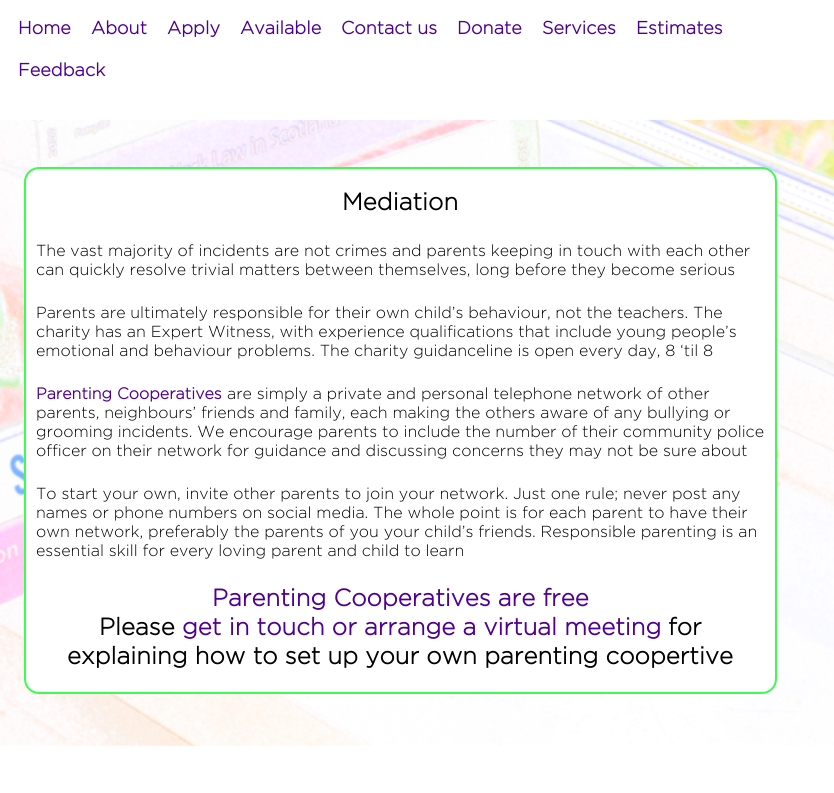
#include <cairo.h>
#include <math.h>
#include <stddef.h>

typedef struct { double x, y; const char *s; } line_t;

static void ink(cairo_t *ctx, unsigned color) {
    cairo_set_source_rgb(ctx, (color >> 16) / 255.0, (color >> 8 & 255) / 255.0, (color & 255) / 255.0);
}

static void round_path(cairo_t *ctx, double x, double y, double w, double h, double r) {
    cairo_new_sub_path(ctx);
    cairo_arc(ctx, x + w - r, y + h - r, r, 0, M_PI / 2);
    cairo_arc(ctx, x + r, y + h - r, r, M_PI / 2, M_PI);
    cairo_arc(ctx, x + r, y + r, r, M_PI, 1.5 * M_PI);
    cairo_arc(ctx, x + w - r, y + r, r, 1.5 * M_PI, 2 * M_PI);
    cairo_close_path(ctx);
}

static void paste(cairo_t *ctx, const char *path, double x, double y, double w, double h) {
    cairo_surface_t *image = cairo_image_surface_create_from_png(path);
    cairo_save(ctx);
    cairo_set_source_surface(ctx, image, x, y);
    cairo_rectangle(ctx, x, y, w, h);
    cairo_fill(ctx);
    cairo_restore(ctx);
    cairo_surface_destroy(image);
}

int main(void) {
    cairo_surface_t *surface = cairo_image_surface_create(CAIRO_FORMAT_RGB24, 834, 793);
    cairo_t *ctx = cairo_create(surface);
    cairo_font_options_t *options = cairo_font_options_create();
    cairo_font_options_set_hint_metrics(options, CAIRO_HINT_METRICS_OFF);
    cairo_font_options_set_hint_style(options, CAIRO_HINT_STYLE_NONE);
    cairo_set_font_options(ctx, options);
    cairo_set_miter_limit(ctx, 4);
    ink(ctx, 0xFFFFFF);
    cairo_paint(ctx);
    paste(ctx, "media/1.png", 0, 119, 834, 628);
    cairo_select_font_face(ctx, "Gotham", CAIRO_FONT_SLANT_NORMAL, CAIRO_FONT_WEIGHT_BOLD);
    cairo_set_font_size(ctx, 18);
    ink(ctx, 0x500090);
    {
        static const line_t items[] = {
            {18, 34, "Home"},
            {91, 34, "About"},
            {167, 34, "Apply"},
            {240, 34, "Available"},
            {341, 34, "Contact us"},
            {457, 34, "Donate"},
            {542, 34, "Services"},
            {636, 34, "Estimates"},
            {18, 76, "Feedback"},
        };
        for (size_t i = 0; i < sizeof items / sizeof *items; i++) {
            cairo_move_to(ctx, items[i].x, items[i].y);
            cairo_show_text(ctx, items[i].s);
        }
    }
    ink(ctx, 0xFFFFFF);
    round_path(ctx, 25, 168, 751, 525, 14);
    cairo_fill_preserve(ctx);
    ink(ctx, 0x3CFC4F);
    cairo_stroke(ctx);
    cairo_set_font_size(ctx, 24);
    ink(ctx, 0x000000);
    cairo_move_to(ctx, 342, 210);
    cairo_show_text(ctx, "Mediation");
    cairo_select_font_face(ctx, "Gotham Light", CAIRO_FONT_SLANT_NORMAL, CAIRO_FONT_WEIGHT_NORMAL);
    cairo_set_font_size(ctx, 16);
    {
        static const line_t items[] = {
            {36, 256, "The vast majority of incidents are not crimes and parents keeping in touch with each other"},
            {36, 275, "can quickly resolve trivial matters between themselves, long before they become serious"},
            {36, 318, "Parents are ultimately responsible for their own child’s behaviour, not the teachers. The"},
            {36, 337, "charity has an Expert Witness, with experience qualifications that include young people’s"},
            {36, 356, "emotional and behaviour problems. The charity guidanceline is open every day, 8 ‘til 8"},
        };
        for (size_t i = 0; i < sizeof items / sizeof *items; i++) {
            cairo_move_to(ctx, items[i].x, items[i].y);
            cairo_show_text(ctx, items[i].s);
        }
    }
    cairo_select_font_face(ctx, "Gotham", CAIRO_FONT_SLANT_NORMAL, CAIRO_FONT_WEIGHT_BOLD);
    ink(ctx, 0x500090);
    cairo_move_to(ctx, 36, 399);
    cairo_show_text(ctx, "Parenting Cooperatives");
    cairo_select_font_face(ctx, "Gotham Light", CAIRO_FONT_SLANT_NORMAL, CAIRO_FONT_WEIGHT_NORMAL);
    ink(ctx, 0x000000);
    {
        static const line_t items[] = {
            {227, 399, "are simply a private and personal telephone network of other"},
            {36, 418, "parents, neighbours’ friends and family, each making the others aware of any bullying or"},
            {36, 437, "grooming incidents. We encourage parents to include the number of their community police"},
            {36, 456, "officer on their network for guidance and discussing concerns they may not be sure about"},
            {36, 499, "To start your own, invite other parents to join your network. Just one rule; never post any"},
            {36, 518, "names or phone numbers on social media. The whole point is for each parent to have their"},
            {36, 537, "own network, preferably the parents of you your child’s friends. Responsible parenting is an"},
            {36, 556, "essential skill for every loving parent and child to learn"},
        };
        for (size_t i = 0; i < sizeof items / sizeof *items; i++) {
            cairo_move_to(ctx, items[i].x, items[i].y);
            cairo_show_text(ctx, items[i].s);
        }
    }
    cairo_select_font_face(ctx, "Gotham", CAIRO_FONT_SLANT_NORMAL, CAIRO_FONT_WEIGHT_BOLD);
    cairo_set_font_size(ctx, 24);
    ink(ctx, 0x500090);
    cairo_move_to(ctx, 212, 606);
    cairo_show_text(ctx, "Parenting Cooperatives are free");
    ink(ctx, 0x000000);
    cairo_move_to(ctx, 99, 635);
    cairo_show_text(ctx, "Please");
    ink(ctx, 0x500090);
    cairo_move_to(ctx, 182, 635);
    cairo_show_text(ctx, "get in touch or arrange a virtual meeting");
    ink(ctx, 0x000000);
    cairo_move_to(ctx, 668, 635);
    cairo_show_text(ctx, "for");
    cairo_move_to(ctx, 67, 664);
    cairo_show_text(ctx, "explaining how to set up your own parenting coopertive");
    cairo_surface_write_to_png(surface, "image.png");
    cairo_font_options_destroy(options);
    cairo_destroy(ctx);
    cairo_surface_destroy(surface);
    return 0;
}
